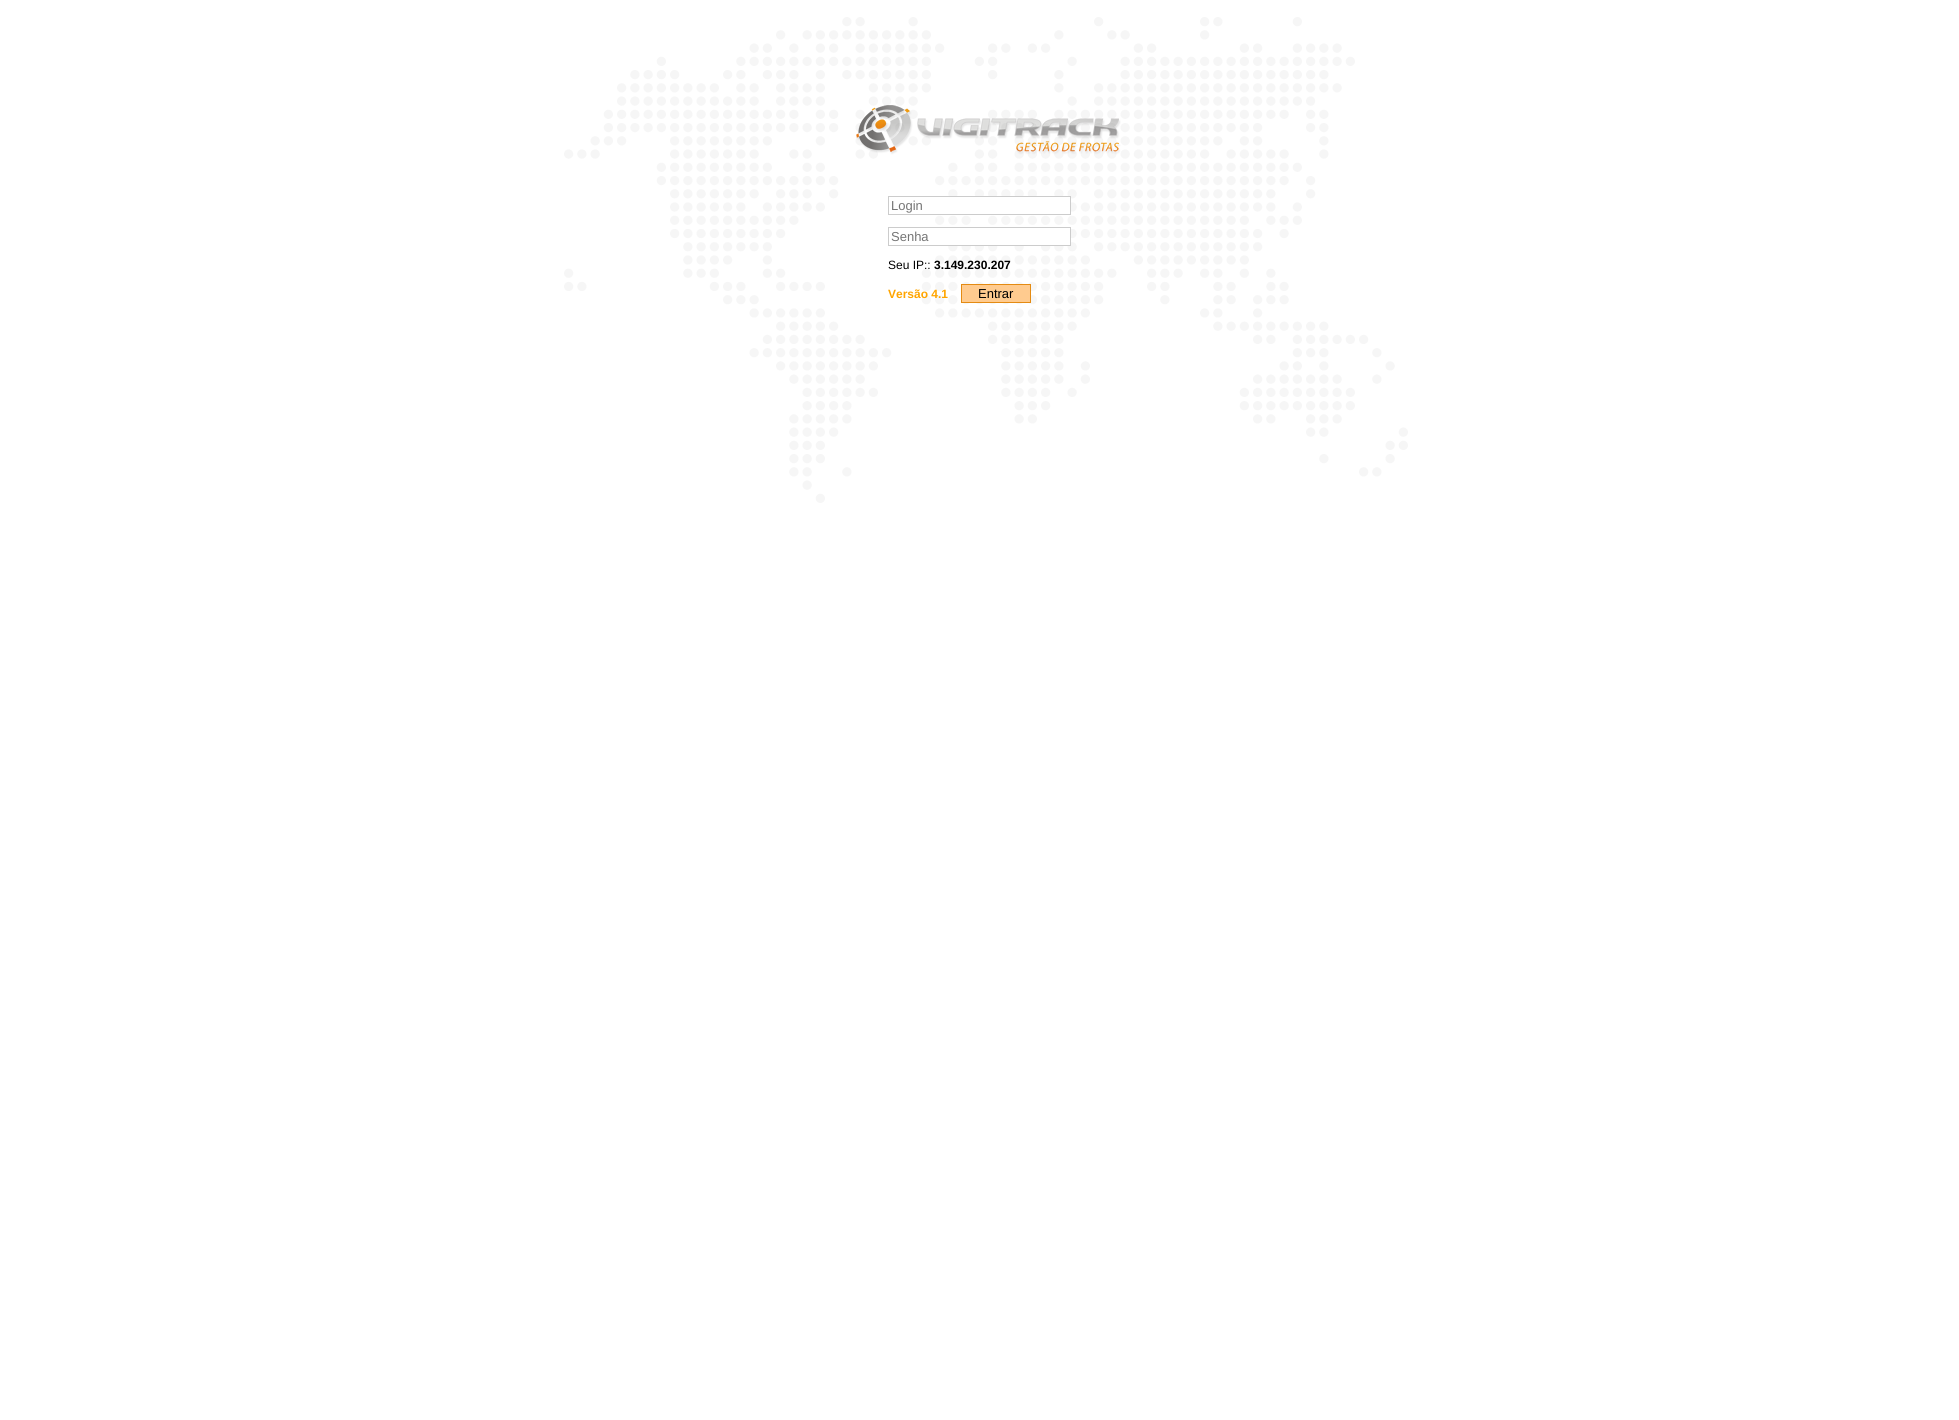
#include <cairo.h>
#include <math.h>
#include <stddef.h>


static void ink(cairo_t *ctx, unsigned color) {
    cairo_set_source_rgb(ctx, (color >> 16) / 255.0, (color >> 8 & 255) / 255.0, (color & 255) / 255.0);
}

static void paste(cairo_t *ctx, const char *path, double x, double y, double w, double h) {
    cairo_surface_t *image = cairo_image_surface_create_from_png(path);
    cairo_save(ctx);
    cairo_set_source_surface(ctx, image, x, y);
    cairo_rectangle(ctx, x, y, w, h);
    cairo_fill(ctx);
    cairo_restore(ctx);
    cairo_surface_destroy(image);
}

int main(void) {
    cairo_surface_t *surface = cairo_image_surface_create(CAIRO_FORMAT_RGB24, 1959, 1420);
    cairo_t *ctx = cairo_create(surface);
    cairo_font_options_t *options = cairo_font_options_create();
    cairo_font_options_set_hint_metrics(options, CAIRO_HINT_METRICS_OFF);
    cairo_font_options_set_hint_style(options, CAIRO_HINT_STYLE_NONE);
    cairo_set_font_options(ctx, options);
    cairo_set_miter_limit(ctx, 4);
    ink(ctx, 0xFFFFFF);
    cairo_paint(ctx);
    paste(ctx, "media/1.png", 564, 17, 844, 486);
    ink(ctx, 0xFFFFFF);
    cairo_rectangle(ctx, 950, 197, 120, 15);
    cairo_fill(ctx);
    cairo_rectangle(ctx, 888.5, 196.5, 182, 18);
    ink(ctx, 0xCCCCCC);
    cairo_set_line_width(ctx, 1);
    cairo_stroke(ctx);
    cairo_select_font_face(ctx, "Liberation Sans", CAIRO_FONT_SLANT_NORMAL, CAIRO_FONT_WEIGHT_NORMAL);
    cairo_set_font_size(ctx, 13);
    ink(ctx, 0x757575);
    cairo_move_to(ctx, 891, 210);
    cairo_show_text(ctx, "Login");
    ink(ctx, 0xFFFFFF);
    cairo_rectangle(ctx, 948, 229, 122, 16);
    cairo_fill(ctx);
    cairo_rectangle(ctx, 888.5, 227.5, 182, 18);
    ink(ctx, 0xCCCCCC);
    cairo_stroke(ctx);
    ink(ctx, 0x757575);
    cairo_move_to(ctx, 891, 241);
    cairo_show_text(ctx, "Senha");
    cairo_set_font_size(ctx, 12);
    ink(ctx, 0x000000);
    cairo_move_to(ctx, 888, 269);
    cairo_show_text(ctx, "Seu IP::");
    cairo_select_font_face(ctx, "Liberation Sans", CAIRO_FONT_SLANT_NORMAL, CAIRO_FONT_WEIGHT_BOLD);
    cairo_move_to(ctx, 934, 269);
    cairo_show_text(ctx, "3.149.230.207");
    ink(ctx, 0xFFA500);
    cairo_move_to(ctx, 888, 298);
    cairo_show_text(ctx, "Versão 4.1");
    ink(ctx, 0xFFCB8F);
    cairo_rectangle(ctx, 961.5, 284.5, 69, 18);
    cairo_fill_preserve(ctx);
    ink(ctx, 0xE48B13);
    cairo_stroke(ctx);
    cairo_select_font_face(ctx, "Liberation Sans", CAIRO_FONT_SLANT_NORMAL, CAIRO_FONT_WEIGHT_NORMAL);
    cairo_set_font_size(ctx, 13);
    ink(ctx, 0x000000);
    cairo_move_to(ctx, 978, 298);
    cairo_show_text(ctx, "Entrar");
    cairo_surface_write_to_png(surface, "image.png");
    cairo_font_options_destroy(options);
    cairo_destroy(ctx);
    cairo_surface_destroy(surface);
    return 0;
}
